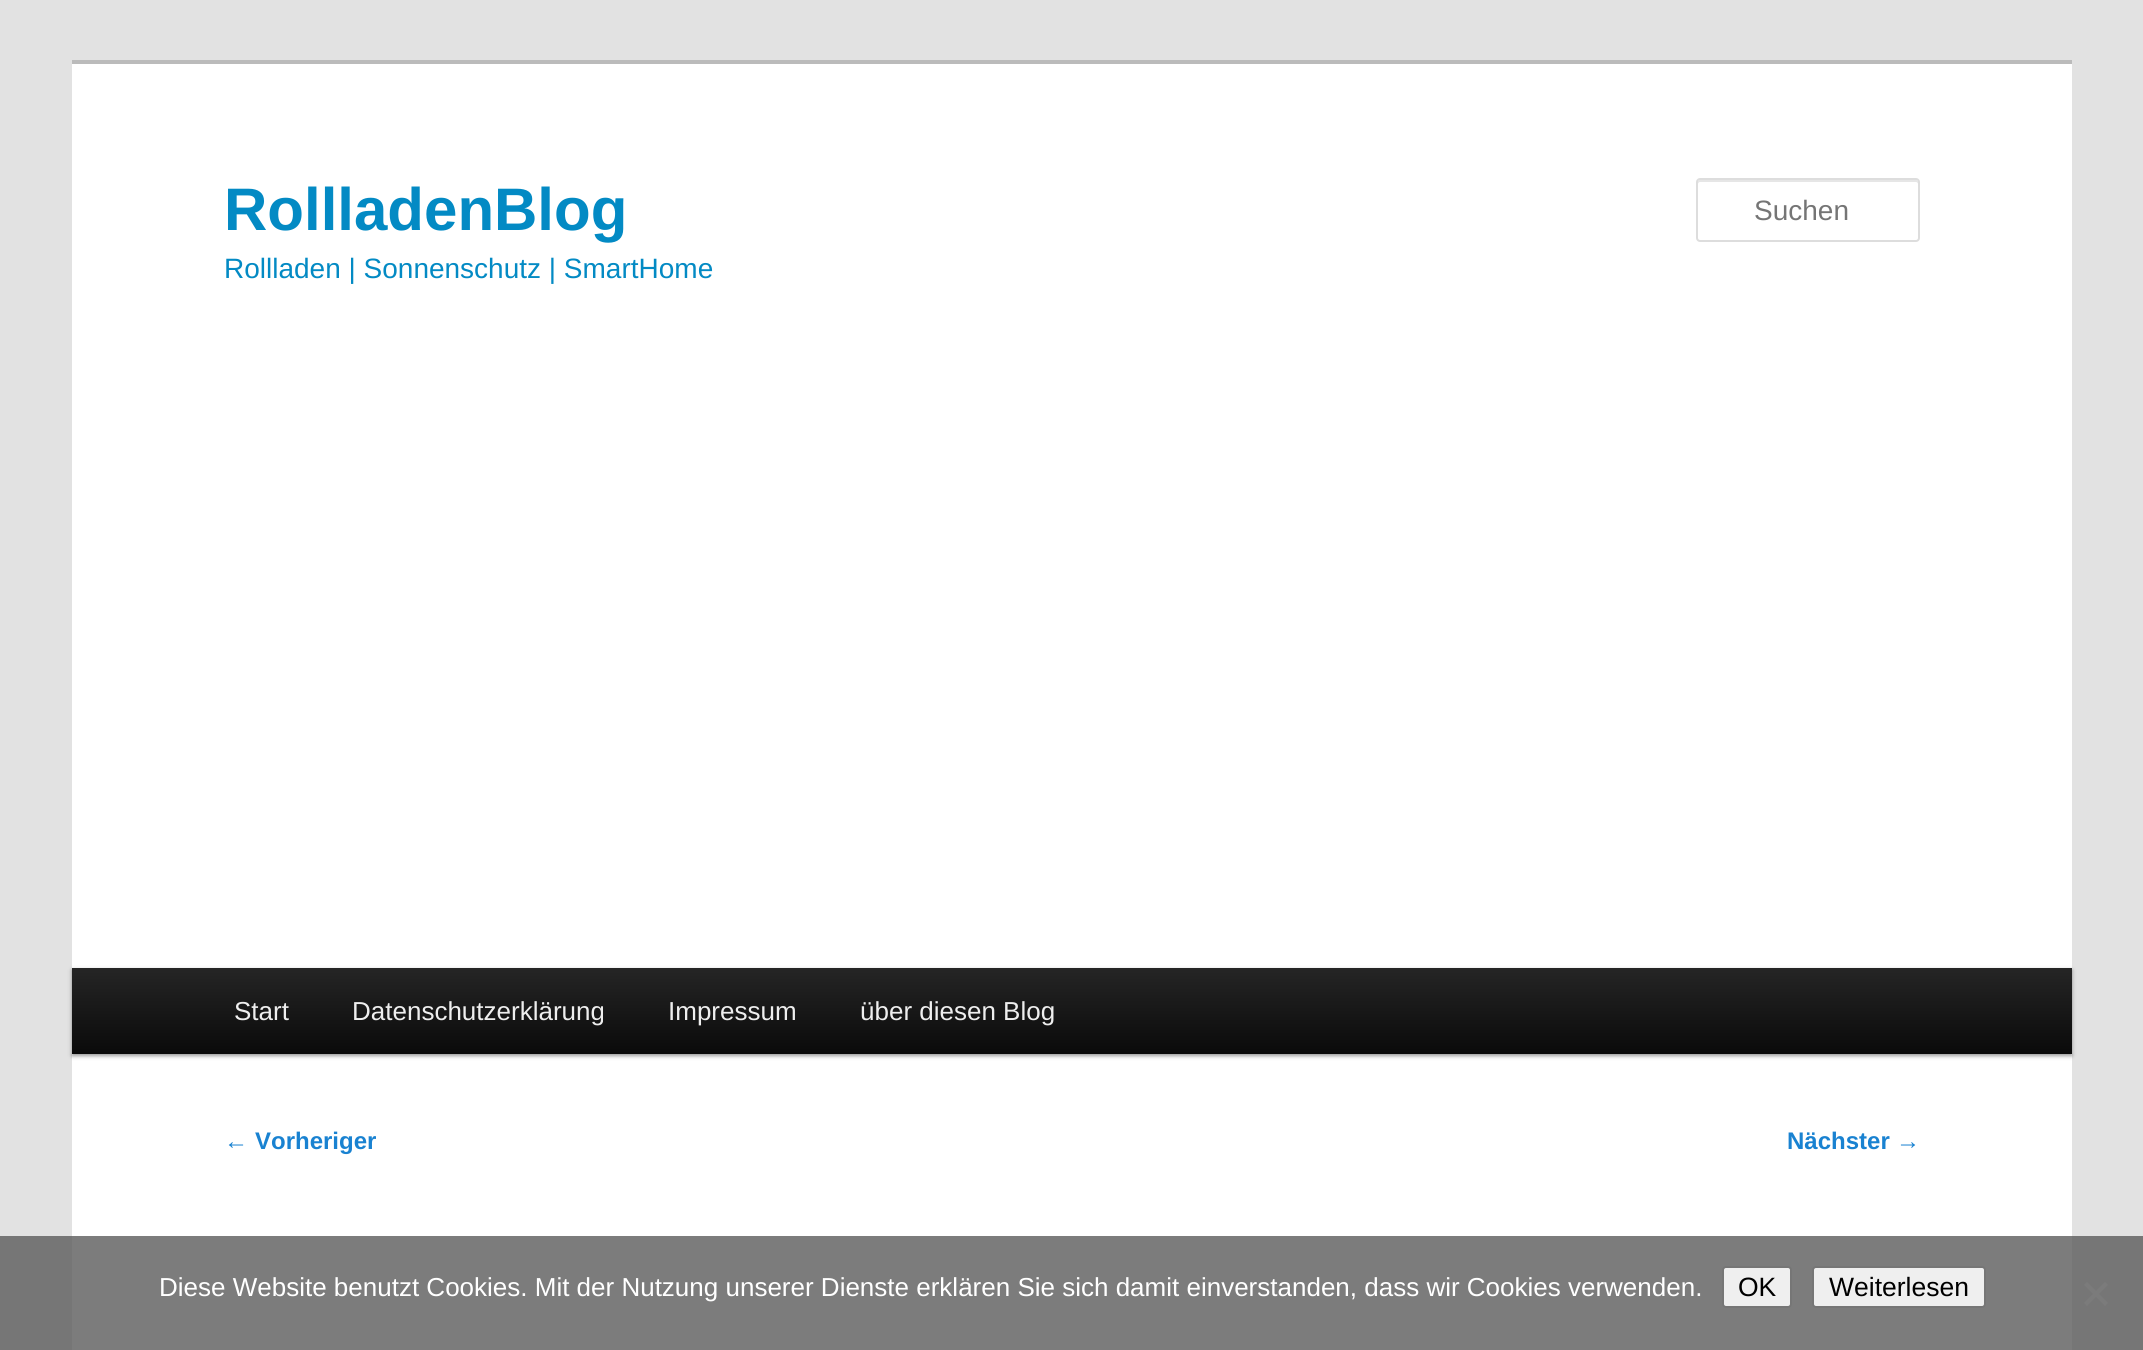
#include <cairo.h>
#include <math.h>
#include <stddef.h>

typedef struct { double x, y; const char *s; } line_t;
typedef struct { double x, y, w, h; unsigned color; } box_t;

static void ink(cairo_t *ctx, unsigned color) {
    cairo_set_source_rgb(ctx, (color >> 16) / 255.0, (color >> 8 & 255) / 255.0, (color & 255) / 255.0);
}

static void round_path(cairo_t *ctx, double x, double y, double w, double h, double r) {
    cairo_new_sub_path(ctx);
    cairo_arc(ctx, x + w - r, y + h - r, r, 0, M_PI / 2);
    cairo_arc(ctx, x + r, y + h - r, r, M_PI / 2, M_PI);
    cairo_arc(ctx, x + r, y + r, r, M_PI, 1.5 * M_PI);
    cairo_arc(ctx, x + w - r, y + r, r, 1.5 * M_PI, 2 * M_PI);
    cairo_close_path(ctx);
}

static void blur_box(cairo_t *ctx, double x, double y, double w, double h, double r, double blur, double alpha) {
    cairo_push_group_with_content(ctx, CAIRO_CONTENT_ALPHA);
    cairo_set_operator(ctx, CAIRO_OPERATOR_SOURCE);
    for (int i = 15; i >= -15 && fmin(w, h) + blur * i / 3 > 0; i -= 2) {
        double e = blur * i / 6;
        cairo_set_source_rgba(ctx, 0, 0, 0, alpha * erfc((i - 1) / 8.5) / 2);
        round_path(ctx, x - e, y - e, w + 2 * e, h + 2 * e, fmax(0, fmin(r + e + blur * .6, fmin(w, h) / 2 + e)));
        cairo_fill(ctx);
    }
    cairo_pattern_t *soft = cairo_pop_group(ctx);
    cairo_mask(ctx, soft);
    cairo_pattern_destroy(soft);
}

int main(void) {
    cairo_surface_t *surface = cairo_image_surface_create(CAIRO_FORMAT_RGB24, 2143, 1350);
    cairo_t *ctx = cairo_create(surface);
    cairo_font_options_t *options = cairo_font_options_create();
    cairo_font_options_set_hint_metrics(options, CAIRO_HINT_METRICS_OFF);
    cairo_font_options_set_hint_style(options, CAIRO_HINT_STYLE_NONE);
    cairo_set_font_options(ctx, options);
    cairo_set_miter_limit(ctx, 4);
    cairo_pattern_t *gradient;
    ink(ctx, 0xE2E2E2);
    cairo_paint(ctx);
    {
        static const box_t items[] = {
            {0, 1236, 2143, 114, 0x767676},
            {72, 64, 2000, 1172, 0xFFFFFF},
            {72, 1236, 2000, 114, 0x7C7C7C},
            {72, 60, 2000, 4, 0xBBBBBB},
        };
        for (size_t i = 0; i < sizeof items / sizeof *items; i++) {
            ink(ctx, items[i].color);
            cairo_rectangle(ctx, items[i].x, items[i].y, items[i].w, items[i].h);
            cairo_fill(ctx);
        }
    }
    cairo_select_font_face(ctx, "Liberation Sans", CAIRO_FONT_SLANT_NORMAL, CAIRO_FONT_WEIGHT_BOLD);
    cairo_set_font_size(ctx, 60);
    ink(ctx, 0x038AC4);
    cairo_move_to(ctx, 224, 230);
    cairo_show_text(ctx, "RollladenBlog");
    cairo_select_font_face(ctx, "Liberation Sans", CAIRO_FONT_SLANT_NORMAL, CAIRO_FONT_WEIGHT_NORMAL);
    cairo_set_font_size(ctx, 28);
    cairo_move_to(ctx, 224, 278);
    cairo_show_text(ctx, "Rollladen | Sonnenschutz | SmartHome");
    ink(ctx, 0xE6E6E6);
    cairo_new_path(ctx);
    cairo_move_to(ctx, 1700, 182);
    cairo_line_to(ctx, 1916, 182);
    cairo_curve_to(ctx, 1917, 182, 1918, 183, 1918, 184);
    cairo_line_to(ctx, 1918, 182);
    cairo_curve_to(ctx, 1918, 181, 1917, 180, 1916, 180);
    cairo_line_to(ctx, 1700, 180);
    cairo_curve_to(ctx, 1699, 180, 1698, 181, 1698, 182);
    cairo_line_to(ctx, 1698, 184);
    cairo_curve_to(ctx, 1698, 183, 1699, 182, 1700, 182);
    cairo_close_path(ctx);
    cairo_fill(ctx);
    round_path(ctx, 1697, 179, 222, 62, 3);
    ink(ctx, 0xDDDDDD);
    cairo_stroke(ctx);
    ink(ctx, 0x757575);
    cairo_move_to(ctx, 1754, 220);
    cairo_show_text(ctx, "Suchen");
    ink(ctx, 0x000000);
    blur_box(ctx, 72, 970, 2000, 86, 0, 2, 0.4);
    gradient = cairo_pattern_create_linear(1072, 968, 1072, 1054);
    cairo_pattern_add_color_stop_rgba(gradient, 0, 0.145, 0.145, 0.145, 1);
    cairo_pattern_add_color_stop_rgba(gradient, 1, 0.039, 0.039, 0.039, 1);
    cairo_set_source(ctx, gradient);
    cairo_pattern_destroy(gradient);
    cairo_rectangle(ctx, 72, 968, 2000, 86);
    cairo_fill(ctx);
    cairo_set_font_size(ctx, 26);
    ink(ctx, 0xEEEEEE);
    {
        static const line_t items[] = {
            {234, 1020, "Start"},
            {352, 1020, "Datenschutzerklärung"},
            {668, 1020, "Impressum"},
            {860, 1020, "über diesen Blog"},
        };
        for (size_t i = 0; i < sizeof items / sizeof *items; i++) {
            cairo_move_to(ctx, items[i].x, items[i].y);
            cairo_show_text(ctx, items[i].s);
        }
    }
    cairo_set_font_size(ctx, 24);
    ink(ctx, 0x1982D1);
    cairo_move_to(ctx, 224, 1149);
    cairo_show_text(ctx, "←");
    cairo_select_font_face(ctx, "Liberation Sans", CAIRO_FONT_SLANT_NORMAL, CAIRO_FONT_WEIGHT_BOLD);
    cairo_move_to(ctx, 255, 1149);
    cairo_show_text(ctx, "Vorheriger");
    cairo_move_to(ctx, 1787, 1149);
    cairo_show_text(ctx, "Nächster");
    cairo_select_font_face(ctx, "Liberation Sans", CAIRO_FONT_SLANT_NORMAL, CAIRO_FONT_WEIGHT_NORMAL);
    cairo_move_to(ctx, 1896, 1149);
    cairo_show_text(ctx, "→");
    cairo_set_font_size(ctx, 26);
    ink(ctx, 0xFFFFFF);
    cairo_move_to(ctx, 159, 1296);
    cairo_show_text(ctx, "Diese Website benutzt Cookies. Mit der Nutzung unserer Dienste erklären Sie sich damit einverstanden, dass wir Cookies verwenden.");
    ink(ctx, 0xEFEFEF);
    round_path(ctx, 1723, 1267, 68, 40, 3);
    cairo_fill_preserve(ctx);
    ink(ctx, 0x767676);
    cairo_stroke(ctx);
    cairo_set_font_size(ctx, 26.5);
    ink(ctx, 0x000000);
    cairo_move_to(ctx, 1738, 1296);
    cairo_show_text(ctx, "OK");
    ink(ctx, 0xEFEFEF);
    round_path(ctx, 1813, 1267, 172, 40, 3);
    cairo_fill_preserve(ctx);
    ink(ctx, 0x767676);
    cairo_stroke(ctx);
    ink(ctx, 0x000000);
    cairo_move_to(ctx, 1829, 1296);
    cairo_show_text(ctx, "Weiterlesen");
    ink(ctx, 0x7B7B7B);
    cairo_new_path(ctx);
    cairo_move_to(ctx, 2105, 1282);
    cairo_line_to(ctx, 2108, 1285);
    cairo_line_to(ctx, 2087, 1306);
    cairo_line_to(ctx, 2084, 1303);
    cairo_close_path(ctx);
    cairo_fill(ctx);
    cairo_new_path(ctx);
    cairo_move_to(ctx, 2084, 1285);
    cairo_line_to(ctx, 2087, 1282);
    cairo_line_to(ctx, 2108, 1303);
    cairo_line_to(ctx, 2105, 1306);
    cairo_close_path(ctx);
    cairo_fill(ctx);
    cairo_surface_write_to_png(surface, "image.png");
    cairo_font_options_destroy(options);
    cairo_destroy(ctx);
    cairo_surface_destroy(surface);
    return 0;
}
